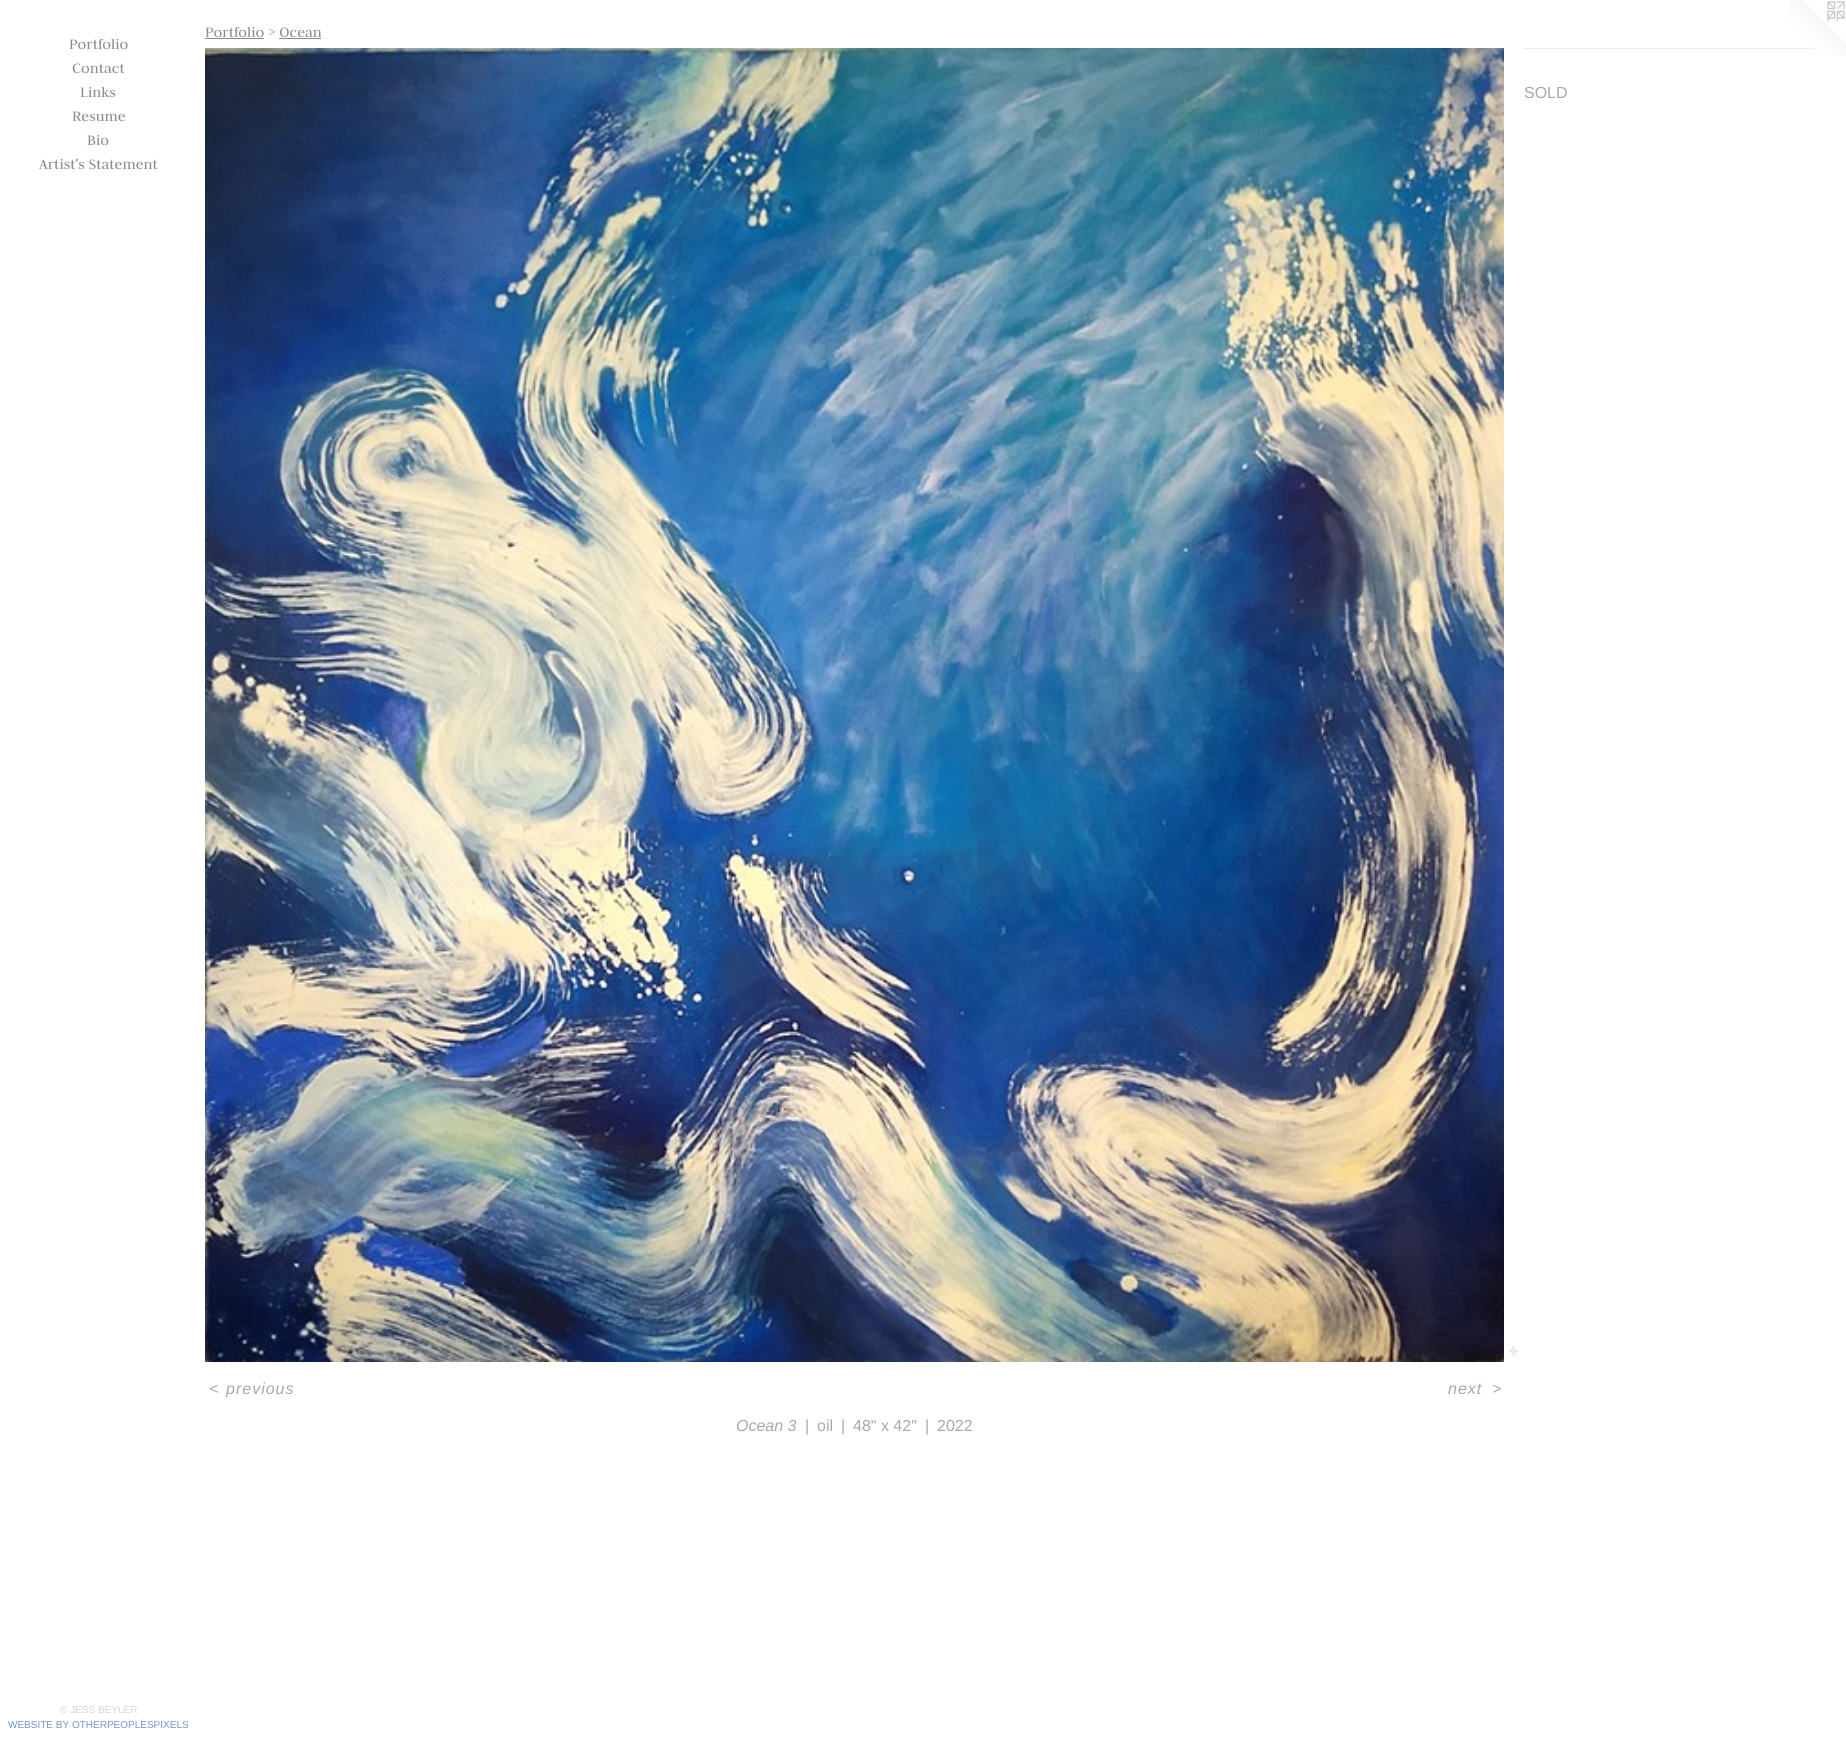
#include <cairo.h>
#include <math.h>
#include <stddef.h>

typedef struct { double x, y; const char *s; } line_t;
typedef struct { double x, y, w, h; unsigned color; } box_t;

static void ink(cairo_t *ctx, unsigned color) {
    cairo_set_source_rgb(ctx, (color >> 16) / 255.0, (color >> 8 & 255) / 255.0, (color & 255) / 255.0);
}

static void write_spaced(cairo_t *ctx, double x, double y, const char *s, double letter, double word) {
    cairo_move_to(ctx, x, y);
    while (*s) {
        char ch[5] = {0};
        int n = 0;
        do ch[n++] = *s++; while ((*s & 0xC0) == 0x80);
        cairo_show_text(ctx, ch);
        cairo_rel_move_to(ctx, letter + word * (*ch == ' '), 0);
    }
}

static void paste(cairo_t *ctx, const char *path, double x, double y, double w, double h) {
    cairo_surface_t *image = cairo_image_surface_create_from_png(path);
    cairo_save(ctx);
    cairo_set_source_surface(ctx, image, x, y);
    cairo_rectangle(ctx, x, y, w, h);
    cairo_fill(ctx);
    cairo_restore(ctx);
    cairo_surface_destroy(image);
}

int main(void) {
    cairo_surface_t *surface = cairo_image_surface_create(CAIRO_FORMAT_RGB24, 1846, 1755);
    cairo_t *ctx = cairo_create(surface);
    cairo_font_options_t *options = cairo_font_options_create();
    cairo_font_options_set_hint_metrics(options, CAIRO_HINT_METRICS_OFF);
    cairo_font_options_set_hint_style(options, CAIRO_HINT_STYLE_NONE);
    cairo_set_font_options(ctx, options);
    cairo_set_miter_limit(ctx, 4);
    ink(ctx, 0xFFFFFF);
    cairo_paint(ctx);
    cairo_select_font_face(ctx, "Judson", CAIRO_FONT_SLANT_NORMAL, CAIRO_FONT_WEIGHT_NORMAL);
    cairo_set_font_size(ctx, 16);
    ink(ctx, 0x8C8C8C);
    {
        static const line_t items[] = {
            {69, 49, "Portfolio"},
            {72, 73, "Contact"},
            {80, 97, "Links"},
            {72, 121, "Resume"},
            {87, 145, "Bio"},
            {39, 169, "Artist's Statement"},
        };
        for (size_t i = 0; i < sizeof items / sizeof *items; i++) {
            cairo_move_to(ctx, items[i].x, items[i].y);
            cairo_show_text(ctx, items[i].s);
        }
    }
    cairo_select_font_face(ctx, "Liberation Sans", CAIRO_FONT_SLANT_NORMAL, CAIRO_FONT_WEIGHT_NORMAL);
    cairo_set_font_size(ctx, 10);
    ink(ctx, 0xD6D6D6);
    cairo_move_to(ctx, 60, 1713);
    cairo_show_text(ctx, "© JESS BEYLER");
    ink(ctx, 0x7095CD);
    cairo_move_to(ctx, 8, 1728);
    cairo_show_text(ctx, "WEBSITE BY OTHERPEOPLESPIXELS");
    cairo_select_font_face(ctx, "Judson", CAIRO_FONT_SLANT_NORMAL, CAIRO_FONT_WEIGHT_NORMAL);
    cairo_set_font_size(ctx, 16);
    ink(ctx, 0x8C8C8C);
    cairo_move_to(ctx, 205, 37);
    cairo_show_text(ctx, "Portfolio > Ocean");
    {
        static const box_t items[] = {
            {205, 38, 59, 1, 0x8C8C8C},
            {279, 38, 42, 1, 0x8C8C8C},
            {1524, 48, 290, 1, 0xEEEEEE},
        };
        for (size_t i = 0; i < sizeof items / sizeof *items; i++) {
            ink(ctx, items[i].color);
            cairo_rectangle(ctx, items[i].x, items[i].y, items[i].w, items[i].h);
            cairo_fill(ctx);
        }
    }
    cairo_select_font_face(ctx, "Liberation Sans", CAIRO_FONT_SLANT_NORMAL, CAIRO_FONT_WEIGHT_NORMAL);
    ink(ctx, 0xA8A8A8);
    cairo_move_to(ctx, 1524, 98);
    cairo_show_text(ctx, "SOLD");
    paste(ctx, "media/1.png", 205, 48, 1299, 1314);
    paste(ctx, "media/2.png", 1509, 1346, 10, 10);
    cairo_select_font_face(ctx, "Liberation Sans", CAIRO_FONT_SLANT_ITALIC, CAIRO_FONT_WEIGHT_NORMAL);
    {
        static const line_t items[] = {
            {209, 1394, "<"},
            {226, 1394, "previous"},
            {1448, 1394, "next"},
            {1492, 1394, ">"},
        };
        for (size_t i = 0; i < sizeof items / sizeof *items; i++) {
            write_spaced(ctx, items[i].x, items[i].y, items[i].s, 1, 0);
        }
    }
    cairo_move_to(ctx, 736, 1431);
    cairo_show_text(ctx, "Ocean 3");
    cairo_select_font_face(ctx, "Liberation Sans", CAIRO_FONT_SLANT_NORMAL, CAIRO_FONT_WEIGHT_NORMAL);
    {
        static const line_t items[] = {
            {805, 1431, "|"},
            {817, 1431, "oil"},
            {841, 1431, "|"},
            {853, 1431, "48\" x 42\""},
            {925, 1431, "|"},
            {937, 1431, "2022"},
        };
        for (size_t i = 0; i < sizeof items / sizeof *items; i++) {
            cairo_move_to(ctx, items[i].x, items[i].y);
            cairo_show_text(ctx, items[i].s);
        }
    }
    paste(ctx, "media/3.png", 1790, 0, 56, 56);
    cairo_surface_write_to_png(surface, "image.png");
    cairo_font_options_destroy(options);
    cairo_destroy(ctx);
    cairo_surface_destroy(surface);
    return 0;
}
